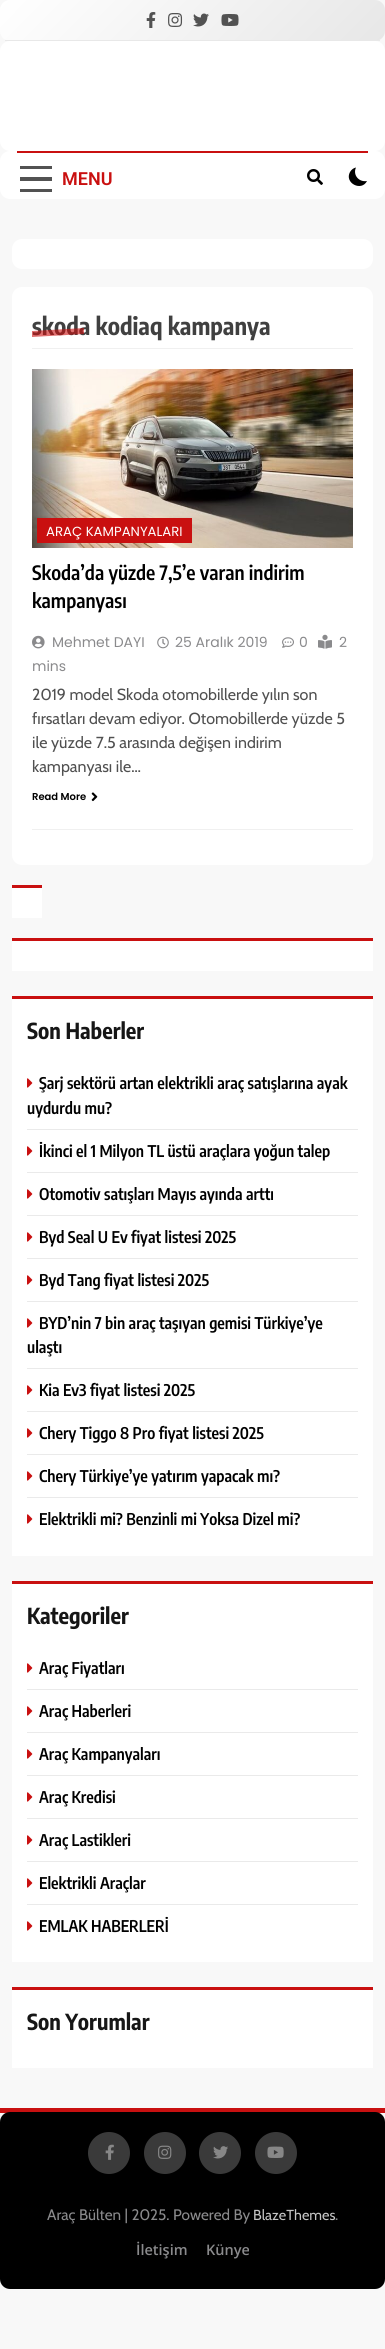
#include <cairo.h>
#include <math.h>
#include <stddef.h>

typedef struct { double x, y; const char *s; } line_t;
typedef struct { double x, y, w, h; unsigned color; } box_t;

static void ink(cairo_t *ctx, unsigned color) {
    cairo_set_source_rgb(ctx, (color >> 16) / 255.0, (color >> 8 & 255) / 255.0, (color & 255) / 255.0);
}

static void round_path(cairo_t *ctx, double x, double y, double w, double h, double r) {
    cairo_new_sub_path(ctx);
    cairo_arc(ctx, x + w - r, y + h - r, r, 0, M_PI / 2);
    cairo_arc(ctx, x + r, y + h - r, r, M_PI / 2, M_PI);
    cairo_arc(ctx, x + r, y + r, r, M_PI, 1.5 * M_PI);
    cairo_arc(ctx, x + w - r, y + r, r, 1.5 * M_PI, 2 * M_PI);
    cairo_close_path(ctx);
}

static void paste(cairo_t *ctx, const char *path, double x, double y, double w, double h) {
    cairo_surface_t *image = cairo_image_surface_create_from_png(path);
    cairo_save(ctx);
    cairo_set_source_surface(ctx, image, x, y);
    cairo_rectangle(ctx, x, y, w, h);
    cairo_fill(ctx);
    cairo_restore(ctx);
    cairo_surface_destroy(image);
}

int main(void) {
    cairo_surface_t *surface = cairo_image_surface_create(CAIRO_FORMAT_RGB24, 385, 2349);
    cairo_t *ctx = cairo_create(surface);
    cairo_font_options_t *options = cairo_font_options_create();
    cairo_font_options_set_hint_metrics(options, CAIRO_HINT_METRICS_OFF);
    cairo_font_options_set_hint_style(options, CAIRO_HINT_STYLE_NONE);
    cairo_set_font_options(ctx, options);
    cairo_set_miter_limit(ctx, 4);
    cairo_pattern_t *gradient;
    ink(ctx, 0xF8F8F8);
    cairo_paint(ctx);
    cairo_save(ctx);
    round_path(ctx, 0, 0, 385, 41, 10);
    cairo_clip(ctx);
    gradient = cairo_pattern_create_linear(86, -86, 299, 126);
    cairo_pattern_add_color_stop_rgba(gradient, 0, 1, 1, 1, 1);
    cairo_pattern_add_color_stop_rgba(gradient, 1, 0.906, 0.906, 0.906, 1);
    cairo_set_source(ctx, gradient);
    cairo_pattern_destroy(gradient);
    cairo_new_path(ctx);
    cairo_move_to(ctx, 10, 0);
    cairo_line_to(ctx, 375, 0);
    cairo_curve_to(ctx, 380.5, 0, 385, 4.5, 385, 10);
    cairo_line_to(ctx, 385, 40);
    cairo_line_to(ctx, 0, 40);
    cairo_line_to(ctx, 0, 10);
    cairo_curve_to(ctx, 0, 4.5, 4.5, 0, 10, 0);
    cairo_close_path(ctx);
    cairo_fill(ctx);
    cairo_restore(ctx);
    ink(ctx, 0xE8E8E8);
    cairo_rectangle(ctx, 5, 40, 375, 1);
    cairo_fill(ctx);
    paste(ctx, "media/1.png", 146, 12, 10, 16);
    paste(ctx, "media/2.png", 168, 13, 15, 14);
    paste(ctx, "media/3.png", 193, 13, 16, 14);
    paste(ctx, "media/4.png", 221, 14, 18, 12);
    ink(ctx, 0xFFFFFF);
    round_path(ctx, 0, 41, 385, 110, 10);
    cairo_fill(ctx);
    round_path(ctx, 0, 151, 385, 48, 10);
    cairo_fill(ctx);
    {
        static const box_t items[] = {
            {17, 151, 351, 2, 0xC91010},
            {20, 166, 32, 3, 0x525252},
            {20, 177, 32, 4, 0x525252},
            {20, 189, 32, 3, 0x525252},
        };
        for (size_t i = 0; i < sizeof items / sizeof *items; i++) {
            ink(ctx, items[i].color);
            cairo_rectangle(ctx, items[i].x, items[i].y, items[i].w, items[i].h);
            cairo_fill(ctx);
        }
    }
    cairo_select_font_face(ctx, "Roboto SemiBold", CAIRO_FONT_SLANT_NORMAL, CAIRO_FONT_WEIGHT_NORMAL);
    cairo_set_font_size(ctx, 18);
    ink(ctx, 0xC91010);
    cairo_move_to(ctx, 62, 185);
    cairo_show_text(ctx, "MENU");
    paste(ctx, "media/5.png", 307, 169, 16, 16);
    ink(ctx, 0x000000);
    cairo_new_path(ctx);
    cairo_move_to(ctx, 367, 181);
    cairo_curve_to(ctx, 359, 182.5, 352.5, 175, 356, 167.5);
    cairo_curve_to(ctx, 353.5, 168, 351.5, 169.5, 350, 172);
    cairo_curve_to(ctx, 344, 183, 361.5, 192, 367, 181);
    cairo_close_path(ctx);
    cairo_fill(ctx);
    ink(ctx, 0xFFFFFF);
    round_path(ctx, 12, 239, 361, 30, 10);
    cairo_fill(ctx);
    round_path(ctx, 12, 287, 361, 578, 10);
    cairo_fill(ctx);
    ink(ctx, 0xF0F0F0);
    cairo_rectangle(ctx, 32, 348, 321, 1);
    cairo_fill(ctx);
    cairo_select_font_face(ctx, "Encode Sans Condensed", CAIRO_FONT_SLANT_NORMAL, CAIRO_FONT_WEIGHT_BOLD);
    cairo_set_font_size(ctx, 24);
    ink(ctx, 0x404040);
    cairo_move_to(ctx, 32, 335);
    cairo_show_text(ctx, "skoda kodiaq kampanya");
    cairo_set_source_rgba(ctx, 0.788, 0.063, 0.063, 0.6);
    cairo_new_path(ctx);
    cairo_move_to(ctx, 32, 331);
    cairo_line_to(ctx, 84, 328);
    cairo_line_to(ctx, 84, 334);
    cairo_line_to(ctx, 32, 337);
    cairo_close_path(ctx);
    cairo_fill(ctx);
    ink(ctx, 0xF0F0F0);
    cairo_rectangle(ctx, 32, 829, 321, 1);
    cairo_fill(ctx);
    paste(ctx, "media/6.png", 32, 369, 321, 179);
    ink(ctx, 0xC91010);
    cairo_rectangle(ctx, 37, 518, 155, 25);
    cairo_fill(ctx);
    cairo_select_font_face(ctx, "Poppins", CAIRO_FONT_SLANT_NORMAL, CAIRO_FONT_WEIGHT_NORMAL);
    cairo_set_font_size(ctx, 13.25);
    ink(ctx, 0xFFFFFF);
    cairo_move_to(ctx, 46, 536);
    cairo_show_text(ctx, "ARAÇ KAMPANYALARI");
    cairo_select_font_face(ctx, "Encode Sans Condensed SemiBold", CAIRO_FONT_SLANT_NORMAL, CAIRO_FONT_WEIGHT_NORMAL);
    cairo_set_font_size(ctx, 19.75);
    ink(ctx, 0x000000);
    cairo_move_to(ctx, 32, 580);
    cairo_show_text(ctx, "Skoda’da yüzde 7,5’e varan indirim");
    cairo_move_to(ctx, 32, 608);
    cairo_show_text(ctx, "kampanyası");
    paste(ctx, "media/7.png", 32, 635, 13, 14);
    cairo_select_font_face(ctx, "Poppins", CAIRO_FONT_SLANT_NORMAL, CAIRO_FONT_WEIGHT_NORMAL);
    cairo_set_font_size(ctx, 14);
    ink(ctx, 0x8A8A8C);
    cairo_move_to(ctx, 52, 647);
    cairo_show_text(ctx, "Mehmet DAYI");
    paste(ctx, "media/8.png", 157, 636, 12, 13);
    cairo_move_to(ctx, 175, 647);
    cairo_show_text(ctx, "25 Aralık 2019");
    paste(ctx, "media/9.png", 282, 637, 12, 11);
    cairo_move_to(ctx, 299, 647);
    cairo_show_text(ctx, "0");
    paste(ctx, "media/10.png", 318, 634, 14, 15);
    cairo_move_to(ctx, 339, 647);
    cairo_show_text(ctx, "2");
    cairo_move_to(ctx, 32, 671);
    cairo_show_text(ctx, "mins");
    cairo_select_font_face(ctx, "Cabin", CAIRO_FONT_SLANT_NORMAL, CAIRO_FONT_WEIGHT_NORMAL);
    cairo_set_font_size(ctx, 16);
    ink(ctx, 0x505050);
    {
        static const line_t items[] = {
            {32, 700, "2019 model Skoda otomobillerde yılın son"},
            {32, 724, "fırsatları devam ediyor. Otomobillerde yüzde 5"},
            {32, 748, "ile yüzde 7.5 arasında değişen indirim"},
            {32, 772, "kampanyası ile…"},
        };
        for (size_t i = 0; i < sizeof items / sizeof *items; i++) {
            cairo_move_to(ctx, items[i].x, items[i].y);
            cairo_show_text(ctx, items[i].s);
        }
    }
    cairo_select_font_face(ctx, "Poppins SemiBold", CAIRO_FONT_SLANT_NORMAL, CAIRO_FONT_WEIGHT_NORMAL);
    cairo_set_font_size(ctx, 10);
    ink(ctx, 0x000000);
    cairo_move_to(ctx, 32, 800);
    cairo_show_text(ctx, "Read More");
    paste(ctx, "media/11.png", 91, 792, 7, 10);
    ink(ctx, 0xFFFFFF);
    cairo_rectangle(ctx, 12, 888, 30, 30);
    cairo_fill(ctx);
    gradient = cairo_pattern_create_linear(19, 878, 35, 895);
    cairo_pattern_add_color_stop_rgba(gradient, 1, 0.788, 0.063, 0.063, 1);
    cairo_pattern_add_color_stop_rgba(gradient, 1, 0.608, 0.318, 0.878, 1);
    cairo_set_source(ctx, gradient);
    cairo_pattern_destroy(gradient);
    cairo_rectangle(ctx, 12, 885, 30, 3);
    cairo_fill(ctx);
    ink(ctx, 0xFFFFFF);
    cairo_rectangle(ctx, 12, 941, 361, 30);
    cairo_fill(ctx);
    gradient = cairo_pattern_create_linear(101, 849, 284, 1031);
    cairo_pattern_add_color_stop_rgba(gradient, 1, 0.788, 0.063, 0.063, 1);
    cairo_pattern_add_color_stop_rgba(gradient, 1, 0.608, 0.318, 0.878, 1);
    cairo_set_source(ctx, gradient);
    cairo_pattern_destroy(gradient);
    cairo_rectangle(ctx, 12, 938, 361, 3);
    cairo_fill(ctx);
    ink(ctx, 0xFFFFFF);
    cairo_rectangle(ctx, 12, 999, 361, 557);
    cairo_fill(ctx);
    gradient = cairo_pattern_create_linear(101, 907, 284, 1089);
    cairo_pattern_add_color_stop_rgba(gradient, 1, 0.788, 0.063, 0.063, 1);
    cairo_pattern_add_color_stop_rgba(gradient, 1, 0.608, 0.318, 0.878, 1);
    cairo_set_source(ctx, gradient);
    cairo_pattern_destroy(gradient);
    cairo_rectangle(ctx, 12, 996, 361, 3);
    cairo_fill(ctx);
    cairo_select_font_face(ctx, "Encode Sans Condensed", CAIRO_FONT_SLANT_NORMAL, CAIRO_FONT_WEIGHT_BOLD);
    cairo_set_font_size(ctx, 22);
    ink(ctx, 0x161616);
    cairo_move_to(ctx, 27, 1039);
    cairo_show_text(ctx, "Son Haberler");
    ink(ctx, 0xEAEAEA);
    cairo_rectangle(ctx, 27, 1129, 331, 1);
    cairo_fill(ctx);
    paste(ctx, "media/12.png", 27, 1078, 6, 10);
    cairo_select_font_face(ctx, "Encode Sans Condensed SemiBold", CAIRO_FONT_SLANT_NORMAL, CAIRO_FONT_WEIGHT_NORMAL);
    cairo_set_font_size(ctx, 16.1);
    ink(ctx, 0x000000);
    cairo_move_to(ctx, 39, 1089);
    cairo_show_text(ctx, "Şarj sektörü artan elektrikli araç satışlarına ayak");
    cairo_move_to(ctx, 27, 1114);
    cairo_show_text(ctx, "uydurdu mu?");
    ink(ctx, 0xEAEAEA);
    cairo_rectangle(ctx, 27, 1172, 331, 1);
    cairo_fill(ctx);
    paste(ctx, "media/12.png", 27, 1146, 6, 10);
    ink(ctx, 0x000000);
    cairo_move_to(ctx, 39, 1157);
    cairo_show_text(ctx, "İkinci el 1 Milyon TL üstü araçlara yoğun talep");
    ink(ctx, 0xEAEAEA);
    cairo_rectangle(ctx, 27, 1215, 331, 1);
    cairo_fill(ctx);
    paste(ctx, "media/12.png", 27, 1189, 6, 10);
    ink(ctx, 0x000000);
    cairo_move_to(ctx, 39, 1200);
    cairo_show_text(ctx, "Otomotiv satışları Mayıs ayında arttı");
    ink(ctx, 0xEAEAEA);
    cairo_rectangle(ctx, 27, 1258, 331, 1);
    cairo_fill(ctx);
    paste(ctx, "media/12.png", 27, 1232, 6, 10);
    ink(ctx, 0x000000);
    cairo_move_to(ctx, 39, 1243);
    cairo_show_text(ctx, "Byd Seal U Ev fiyat listesi 2025");
    ink(ctx, 0xEAEAEA);
    cairo_rectangle(ctx, 27, 1301, 331, 1);
    cairo_fill(ctx);
    paste(ctx, "media/12.png", 27, 1275, 6, 10);
    ink(ctx, 0x000000);
    cairo_move_to(ctx, 39, 1286);
    cairo_show_text(ctx, "Byd Tang fiyat listesi 2025");
    ink(ctx, 0xEAEAEA);
    cairo_rectangle(ctx, 27, 1368, 331, 1);
    cairo_fill(ctx);
    paste(ctx, "media/12.png", 27, 1318, 6, 10);
    ink(ctx, 0x000000);
    cairo_move_to(ctx, 39, 1329);
    cairo_show_text(ctx, "BYD’nin 7 bin araç taşıyan gemisi Türkiye’ye");
    cairo_move_to(ctx, 27, 1353);
    cairo_show_text(ctx, "ulaştı");
    ink(ctx, 0xEAEAEA);
    cairo_rectangle(ctx, 27, 1411, 331, 1);
    cairo_fill(ctx);
    paste(ctx, "media/12.png", 27, 1385, 6, 10);
    ink(ctx, 0x000000);
    cairo_move_to(ctx, 39, 1396);
    cairo_show_text(ctx, "Kia Ev3 fiyat listesi 2025");
    ink(ctx, 0xEAEAEA);
    cairo_rectangle(ctx, 27, 1454, 331, 1);
    cairo_fill(ctx);
    paste(ctx, "media/12.png", 27, 1428, 6, 10);
    ink(ctx, 0x000000);
    cairo_move_to(ctx, 39, 1439);
    cairo_show_text(ctx, "Chery Tiggo 8 Pro fiyat listesi 2025");
    ink(ctx, 0xEAEAEA);
    cairo_rectangle(ctx, 27, 1497, 331, 1);
    cairo_fill(ctx);
    paste(ctx, "media/12.png", 27, 1471, 6, 10);
    ink(ctx, 0x000000);
    cairo_move_to(ctx, 39, 1482);
    cairo_show_text(ctx, "Chery Türkiye’ye yatırım yapacak mı?");
    paste(ctx, "media/12.png", 27, 1514, 6, 10);
    cairo_move_to(ctx, 39, 1525);
    cairo_show_text(ctx, "Elektrikli mi? Benzinli mi Yoksa Dizel mi?");
    ink(ctx, 0xFFFFFF);
    cairo_rectangle(ctx, 12, 1584, 361, 378);
    cairo_fill(ctx);
    gradient = cairo_pattern_create_linear(101, 1492, 284, 1674);
    cairo_pattern_add_color_stop_rgba(gradient, 1, 0.788, 0.063, 0.063, 1);
    cairo_pattern_add_color_stop_rgba(gradient, 1, 0.608, 0.318, 0.878, 1);
    cairo_set_source(ctx, gradient);
    cairo_pattern_destroy(gradient);
    cairo_rectangle(ctx, 12, 1581, 361, 3);
    cairo_fill(ctx);
    cairo_select_font_face(ctx, "Encode Sans Condensed", CAIRO_FONT_SLANT_NORMAL, CAIRO_FONT_WEIGHT_BOLD);
    cairo_set_font_size(ctx, 22);
    ink(ctx, 0x161616);
    cairo_move_to(ctx, 27, 1624);
    cairo_show_text(ctx, "Kategoriler");
    ink(ctx, 0xEAEAEA);
    cairo_rectangle(ctx, 27, 1689, 331, 1);
    cairo_fill(ctx);
    paste(ctx, "media/12.png", 27, 1663, 6, 10);
    cairo_select_font_face(ctx, "Encode Sans Condensed SemiBold", CAIRO_FONT_SLANT_NORMAL, CAIRO_FONT_WEIGHT_NORMAL);
    cairo_set_font_size(ctx, 16.1);
    ink(ctx, 0x000000);
    cairo_move_to(ctx, 39, 1674);
    cairo_show_text(ctx, "Araç Fiyatları");
    ink(ctx, 0xEAEAEA);
    cairo_rectangle(ctx, 27, 1732, 331, 1);
    cairo_fill(ctx);
    paste(ctx, "media/12.png", 27, 1706, 6, 10);
    ink(ctx, 0x000000);
    cairo_move_to(ctx, 39, 1717);
    cairo_show_text(ctx, "Araç Haberleri");
    ink(ctx, 0xEAEAEA);
    cairo_rectangle(ctx, 27, 1775, 331, 1);
    cairo_fill(ctx);
    paste(ctx, "media/12.png", 27, 1749, 6, 10);
    ink(ctx, 0x000000);
    cairo_move_to(ctx, 39, 1760);
    cairo_show_text(ctx, "Araç Kampanyaları");
    ink(ctx, 0xEAEAEA);
    cairo_rectangle(ctx, 27, 1818, 331, 1);
    cairo_fill(ctx);
    paste(ctx, "media/12.png", 27, 1792, 6, 10);
    ink(ctx, 0x000000);
    cairo_move_to(ctx, 39, 1803);
    cairo_show_text(ctx, "Araç Kredisi");
    ink(ctx, 0xEAEAEA);
    cairo_rectangle(ctx, 27, 1861, 331, 1);
    cairo_fill(ctx);
    paste(ctx, "media/12.png", 27, 1835, 6, 10);
    ink(ctx, 0x000000);
    cairo_move_to(ctx, 39, 1846);
    cairo_show_text(ctx, "Araç Lastikleri");
    ink(ctx, 0xEAEAEA);
    cairo_rectangle(ctx, 27, 1904, 331, 1);
    cairo_fill(ctx);
    paste(ctx, "media/12.png", 27, 1878, 6, 10);
    ink(ctx, 0x000000);
    cairo_move_to(ctx, 39, 1889);
    cairo_show_text(ctx, "Elektrikli Araçlar");
    paste(ctx, "media/12.png", 27, 1921, 6, 10);
    cairo_move_to(ctx, 39, 1932);
    cairo_show_text(ctx, "EMLAK HABERLERİ");
    ink(ctx, 0xFFFFFF);
    cairo_rectangle(ctx, 12, 1990, 361, 78);
    cairo_fill(ctx);
    gradient = cairo_pattern_create_linear(101, 1898, 284, 2080);
    cairo_pattern_add_color_stop_rgba(gradient, 1, 0.788, 0.063, 0.063, 1);
    cairo_pattern_add_color_stop_rgba(gradient, 1, 0.608, 0.318, 0.878, 1);
    cairo_set_source(ctx, gradient);
    cairo_pattern_destroy(gradient);
    cairo_rectangle(ctx, 12, 1987, 361, 3);
    cairo_fill(ctx);
    cairo_select_font_face(ctx, "Encode Sans Condensed", CAIRO_FONT_SLANT_NORMAL, CAIRO_FONT_WEIGHT_BOLD);
    cairo_set_font_size(ctx, 22);
    ink(ctx, 0x161616);
    cairo_move_to(ctx, 27, 2030);
    cairo_show_text(ctx, "Son Yorumlar");
    ink(ctx, 0xC91010);
    cairo_rectangle(ctx, 0, 2108, 385, 5);
    cairo_fill(ctx);
    ink(ctx, 0x000000);
    round_path(ctx, 0, 2112, 385, 177, 10);
    cairo_fill(ctx);
    ink(ctx, 0x3A3A3A);
    cairo_arc(ctx, 109, 2153, 21, 0, 2 * M_PI);
    cairo_fill(ctx);
    paste(ctx, "media/13.png", 105, 2144, 9, 16);
    cairo_arc(ctx, 165, 2153, 21, 0, 2 * M_PI);
    cairo_fill(ctx);
    paste(ctx, "media/14.png", 158, 2145, 14, 14);
    cairo_arc(ctx, 220, 2153, 21, 0, 2 * M_PI);
    cairo_fill(ctx);
    paste(ctx, "media/15.png", 213, 2146, 15, 13);
    cairo_arc(ctx, 276, 2153, 21, 0, 2 * M_PI);
    cairo_fill(ctx);
    paste(ctx, "media/16.png", 267, 2146, 17, 12);
    cairo_select_font_face(ctx, "Cabin", CAIRO_FONT_SLANT_NORMAL, CAIRO_FONT_WEIGHT_NORMAL);
    cairo_set_font_size(ctx, 15.25);
    ink(ctx, 0x8A8A8C);
    cairo_move_to(ctx, 47, 2220);
    cairo_show_text(ctx, "Araç Bülten | 2025. Powered By");
    cairo_set_font_size(ctx, 14.5);
    ink(ctx, 0xC5C5C5);
    cairo_move_to(ctx, 253, 2220);
    cairo_show_text(ctx, "BlazeThemes");
    cairo_set_font_size(ctx, 15.25);
    ink(ctx, 0x8A8A8C);
    cairo_move_to(ctx, 335, 2220);
    cairo_show_text(ctx, ".");
    cairo_select_font_face(ctx, "Open Sans SemiBold", CAIRO_FONT_SLANT_NORMAL, CAIRO_FONT_WEIGHT_NORMAL);
    cairo_set_font_size(ctx, 14.5);
    cairo_move_to(ctx, 136, 2255);
    cairo_show_text(ctx, "İletişim");
    cairo_move_to(ctx, 206, 2255);
    cairo_show_text(ctx, "Künye");
    cairo_surface_write_to_png(surface, "image.png");
    cairo_font_options_destroy(options);
    cairo_destroy(ctx);
    cairo_surface_destroy(surface);
    return 0;
}
